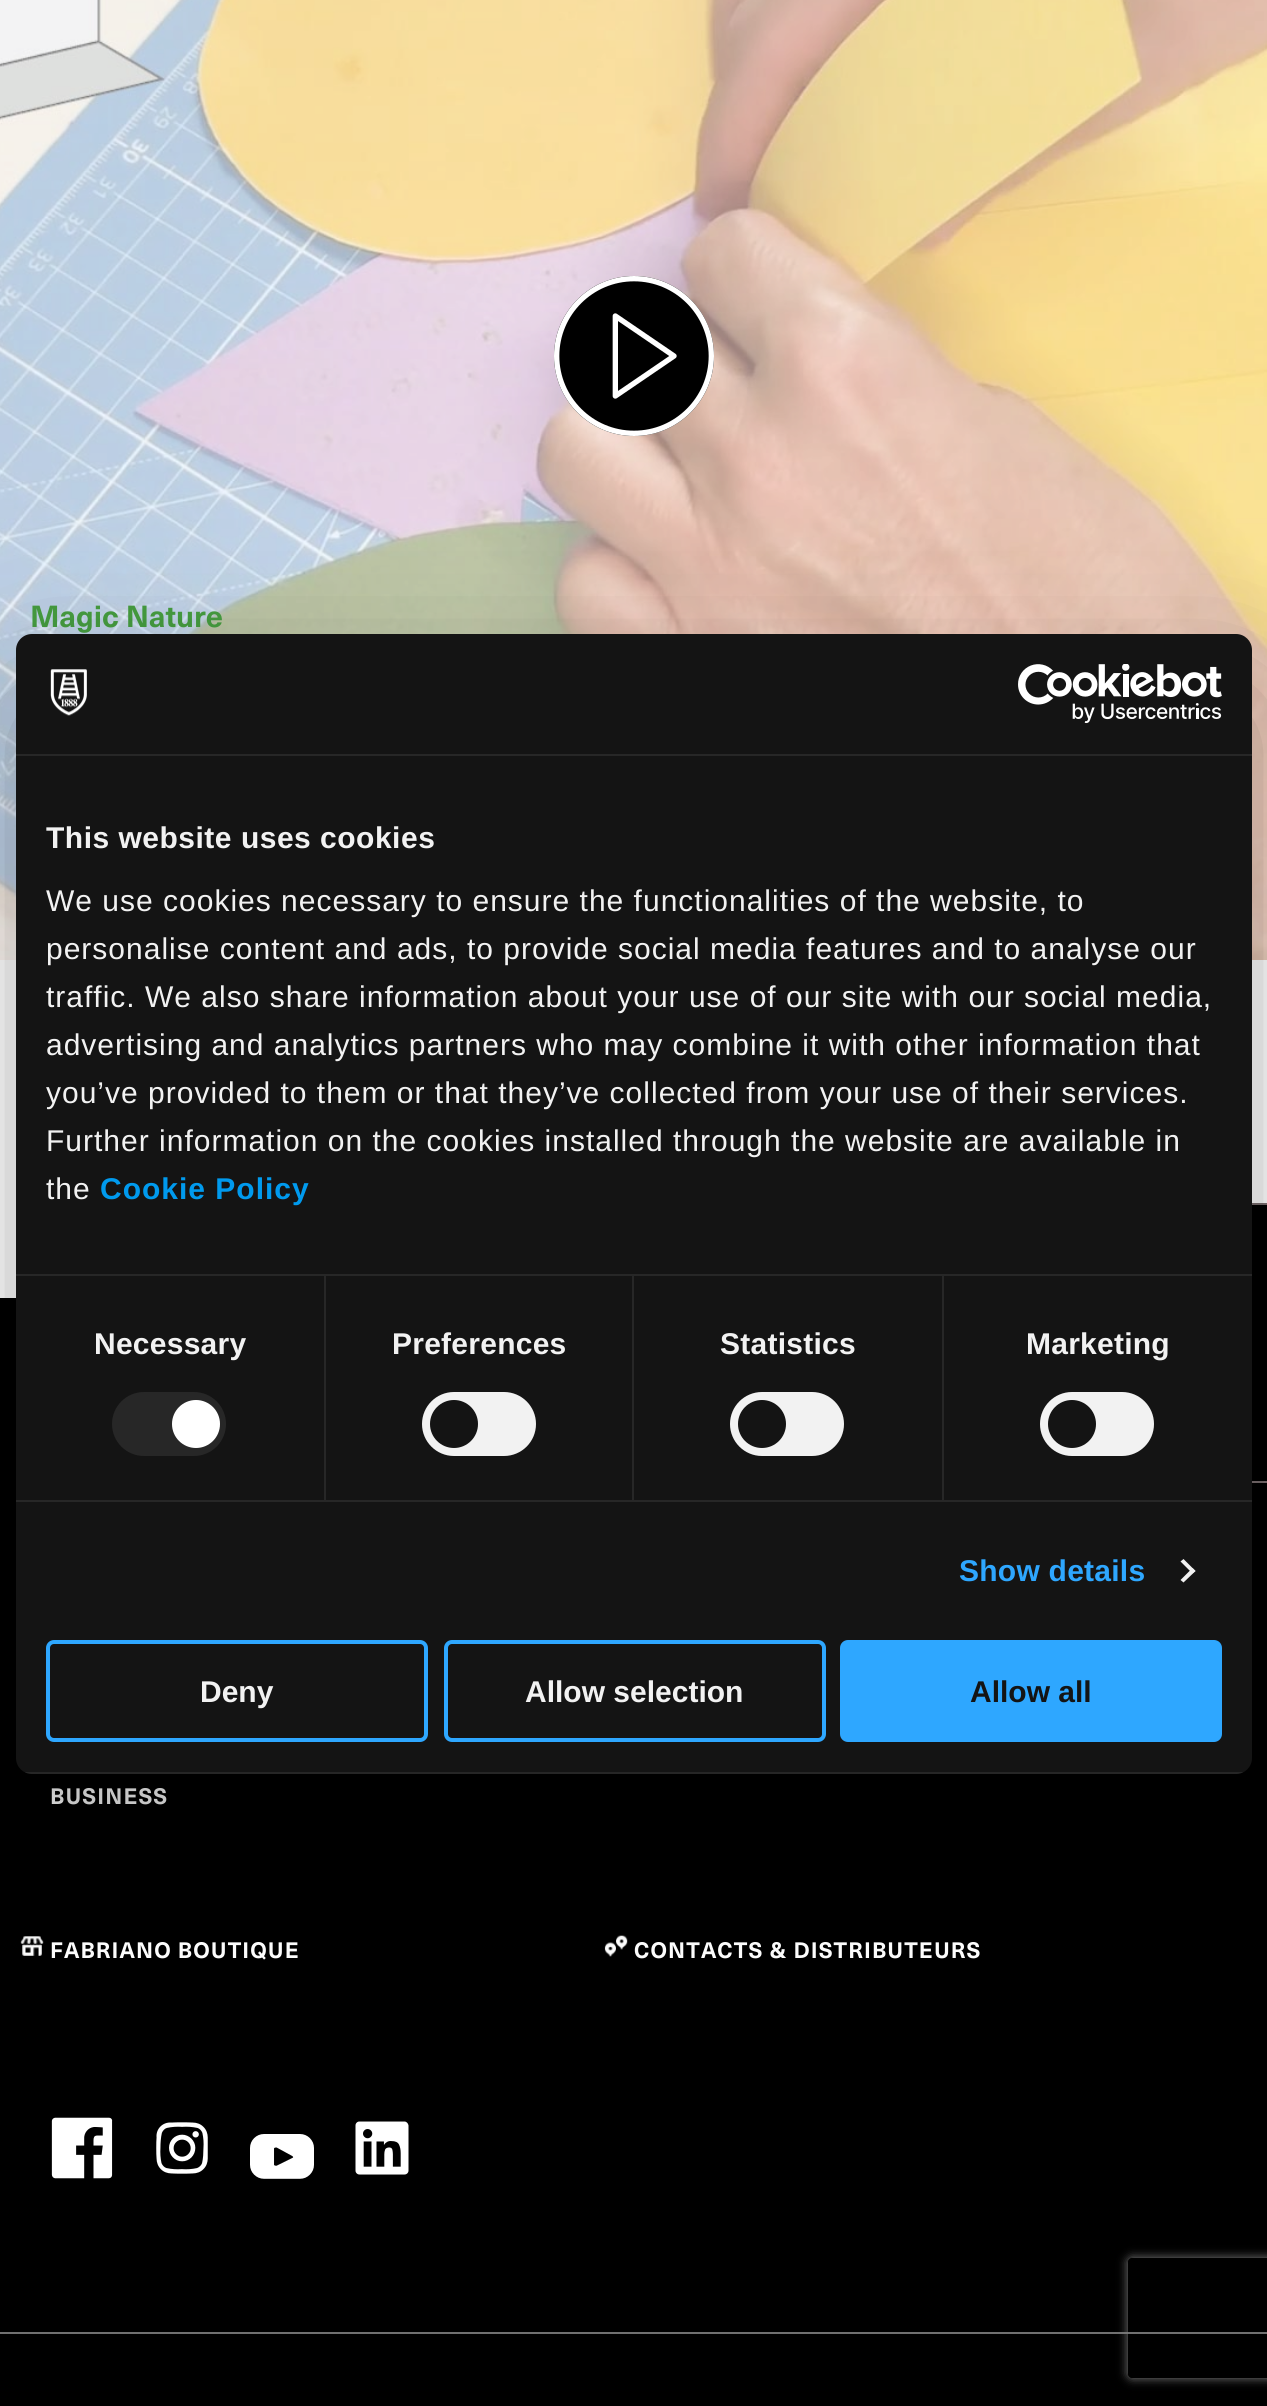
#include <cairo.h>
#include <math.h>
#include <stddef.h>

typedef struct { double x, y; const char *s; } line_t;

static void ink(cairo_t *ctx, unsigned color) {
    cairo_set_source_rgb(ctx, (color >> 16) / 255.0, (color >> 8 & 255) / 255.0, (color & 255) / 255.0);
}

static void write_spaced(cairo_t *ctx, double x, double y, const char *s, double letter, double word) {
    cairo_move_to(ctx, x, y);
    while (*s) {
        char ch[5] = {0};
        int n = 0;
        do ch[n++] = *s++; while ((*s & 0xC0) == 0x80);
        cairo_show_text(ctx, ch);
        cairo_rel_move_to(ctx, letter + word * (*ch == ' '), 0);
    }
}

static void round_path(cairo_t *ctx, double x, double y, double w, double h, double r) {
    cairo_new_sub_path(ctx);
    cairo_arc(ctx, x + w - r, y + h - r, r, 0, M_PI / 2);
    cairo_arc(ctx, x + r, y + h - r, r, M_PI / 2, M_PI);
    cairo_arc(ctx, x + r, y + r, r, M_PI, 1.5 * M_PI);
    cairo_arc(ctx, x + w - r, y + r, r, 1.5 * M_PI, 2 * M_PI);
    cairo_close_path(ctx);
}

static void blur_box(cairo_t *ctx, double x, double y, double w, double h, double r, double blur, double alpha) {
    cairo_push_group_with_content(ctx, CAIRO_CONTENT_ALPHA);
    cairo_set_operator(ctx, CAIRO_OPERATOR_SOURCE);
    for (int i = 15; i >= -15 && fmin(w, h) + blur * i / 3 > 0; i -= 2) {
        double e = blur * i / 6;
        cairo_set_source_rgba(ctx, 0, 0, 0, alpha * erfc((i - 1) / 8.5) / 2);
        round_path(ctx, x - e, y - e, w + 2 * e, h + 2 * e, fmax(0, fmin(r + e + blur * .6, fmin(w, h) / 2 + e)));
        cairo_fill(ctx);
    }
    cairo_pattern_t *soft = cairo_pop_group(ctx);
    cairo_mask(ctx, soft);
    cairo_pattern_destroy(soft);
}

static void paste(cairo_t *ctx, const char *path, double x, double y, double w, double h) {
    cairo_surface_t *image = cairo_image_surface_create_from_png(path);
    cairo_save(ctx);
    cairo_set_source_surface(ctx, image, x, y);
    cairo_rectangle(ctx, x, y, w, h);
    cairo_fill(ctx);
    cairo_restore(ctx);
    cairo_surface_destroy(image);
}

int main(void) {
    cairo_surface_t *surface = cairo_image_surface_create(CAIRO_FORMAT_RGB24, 1267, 2406);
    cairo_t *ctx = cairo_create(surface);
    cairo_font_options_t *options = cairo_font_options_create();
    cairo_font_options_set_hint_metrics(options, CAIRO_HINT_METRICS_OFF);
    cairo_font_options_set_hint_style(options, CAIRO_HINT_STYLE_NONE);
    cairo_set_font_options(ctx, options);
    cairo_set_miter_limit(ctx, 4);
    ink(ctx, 0xFFFFFF);
    cairo_paint(ctx);
    paste(ctx, "media/1.png", 0, 0, 1267, 960);
    ink(ctx, 0x000000);
    cairo_arc(ctx, 634, 356, 80, 0, 2 * M_PI);
    cairo_fill(ctx);
    paste(ctx, "media/2.png", 554, 276, 160, 160);
    cairo_select_font_face(ctx, "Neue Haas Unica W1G", CAIRO_FONT_SLANT_NORMAL, CAIRO_FONT_WEIGHT_BOLD);
    cairo_set_font_size(ctx, 30);
    ink(ctx, 0x459B3F);
    cairo_move_to(ctx, 30, 627);
    cairo_show_text(ctx, "Magic Nature");
    ink(ctx, 0x000000);
    cairo_rectangle(ctx, 0, 1298, 1267, 1108);
    cairo_fill(ctx);
    cairo_new_path(ctx);
    cairo_move_to(ctx, 1168, 1467);
    cairo_line_to(ctx, 1168, 1219);
    cairo_curve_to(ctx, 1168, 1210, 1175, 1203, 1184, 1203);
    cairo_line_to(ctx, 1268, 1203);
    cairo_line_to(ctx, 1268, 1483);
    cairo_line_to(ctx, 1184, 1483);
    cairo_curve_to(ctx, 1175, 1483, 1168, 1476, 1168, 1467);
    cairo_close_path(ctx);
    cairo_fill(ctx);
    ink(ctx, 0x7A6E70);
    cairo_set_fill_rule(ctx, CAIRO_FILL_RULE_EVEN_ODD);
    cairo_new_path(ctx);
    cairo_move_to(ctx, 1168, 1467);
    cairo_line_to(ctx, 1168, 1219);
    cairo_curve_to(ctx, 1168, 1210, 1175, 1203, 1184, 1203);
    cairo_line_to(ctx, 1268, 1203);
    cairo_line_to(ctx, 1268, 1483);
    cairo_line_to(ctx, 1184, 1483);
    cairo_curve_to(ctx, 1175, 1483, 1168, 1476, 1168, 1467);
    cairo_close_path(ctx);
    cairo_move_to(ctx, 1170, 1467);
    cairo_line_to(ctx, 1170, 1219);
    cairo_curve_to(ctx, 1170, 1211, 1176, 1205, 1184, 1205);
    cairo_line_to(ctx, 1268, 1205);
    cairo_line_to(ctx, 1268, 1481);
    cairo_line_to(ctx, 1184, 1481);
    cairo_curve_to(ctx, 1176, 1481, 1170, 1475, 1170, 1467);
    cairo_close_path(ctx);
    cairo_fill(ctx);
    cairo_set_font_size(ctx, 22);
    ink(ctx, 0xFFFFFF);
    write_spaced(ctx, 50, 1804, "BUSINESS", 1.1, 0);
    paste(ctx, "media/3.png", 20, 1936, 24, 20);
    write_spaced(ctx, 50, 1958, "FABRIANO BOUTIQUE", 1.1, 0);
    paste(ctx, "media/4.png", 604, 1935, 24, 22);
    write_spaced(ctx, 634, 1958, "CONTACTS & DISTRIBUTEURS", 1.1, 0);
    paste(ctx, "media/5.png", 51, 2117, 62, 62);
    paste(ctx, "media/6.png", 156, 2122, 52, 52);
    paste(ctx, "media/7.png", 250, 2134, 64, 45);
    paste(ctx, "media/8.png", 355, 2121, 54, 54);
    ink(ctx, 0x707070);
    cairo_rectangle(ctx, 0, 2332, 1267, 2);
    cairo_fill(ctx);
    ink(ctx, 0x000000);
    blur_box(ctx, 16, 698, 1236, 1140, 16, 68, 0.3);
    ink(ctx, 0x141414);
    round_path(ctx, 16, 634, 1236, 1140, 16);
    cairo_fill(ctx);
    ink(ctx, 0x272727);
    cairo_rectangle(ctx, 16, 754, 1236, 2);
    cairo_fill(ctx);
    paste(ctx, "media/9.png", 50, 669, 37, 47);
    paste(ctx, "media/10.png", 1018, 664, 204, 60);
    cairo_rectangle(ctx, 16, 1274, 1236, 2);
    cairo_fill(ctx);
    cairo_select_font_face(ctx, "Liberation Sans", CAIRO_FONT_SLANT_NORMAL, CAIRO_FONT_WEIGHT_BOLD);
    cairo_set_font_size(ctx, 30);
    ink(ctx, 0xF2F2F2);
    write_spaced(ctx, 46, 848, "This website uses cookies", 0.5, 0);
    cairo_select_font_face(ctx, "Liberation Sans", CAIRO_FONT_SLANT_NORMAL, CAIRO_FONT_WEIGHT_NORMAL);
    {
        static const line_t items[] = {
            {46, 911, "We use cookies necessary to ensure the functionalities of the website, to"},
            {46, 959, "personalise content and ads, to provide social media features and to analyse our"},
            {46, 1007, "traffic. We also share information about your use of our site with our social media,"},
            {46, 1055, "advertising and analytics partners who may combine it with other information that"},
            {46, 1103, "you’ve provided to them or that they’ve collected from your use of their services."},
            {46, 1151, "Further information on the cookies installed through the website are available in"},
            {46, 1199, "the"},
        };
        for (size_t i = 0; i < sizeof items / sizeof *items; i++) {
            write_spaced(ctx, items[i].x, items[i].y, items[i].s, 1, 0);
        }
    }
    cairo_select_font_face(ctx, "Liberation Sans", CAIRO_FONT_SLANT_NORMAL, CAIRO_FONT_WEIGHT_BOLD);
    ink(ctx, 0x009AEE);
    write_spaced(ctx, 100, 1199, "Cookie Policy", 1, 0);
    ink(ctx, 0x272727);
    cairo_rectangle(ctx, 16, 1500, 1236, 2);
    cairo_fill(ctx);
    cairo_rectangle(ctx, 324, 1276, 2, 224);
    cairo_fill(ctx);
    ink(ctx, 0xF2F2F2);
    write_spaced(ctx, 94, 1354, "Necessary", 0.25, 0);
    ink(ctx, 0x272727);
    round_path(ctx, 112, 1392, 114, 64, 32);
    cairo_fill(ctx);
    ink(ctx, 0xFFFFFF);
    cairo_arc(ctx, 196, 1424, 24, 0, 2 * M_PI);
    cairo_fill(ctx);
    ink(ctx, 0x272727);
    cairo_rectangle(ctx, 632, 1276, 2, 224);
    cairo_fill(ctx);
    ink(ctx, 0xF2F2F2);
    write_spaced(ctx, 392, 1354, "Preferences", 0.25, 0);
    round_path(ctx, 422, 1392, 114, 64, 32);
    cairo_fill(ctx);
    ink(ctx, 0x141414);
    cairo_arc(ctx, 454, 1424, 24, 0, 2 * M_PI);
    cairo_fill(ctx);
    ink(ctx, 0x272727);
    cairo_rectangle(ctx, 942, 1276, 2, 224);
    cairo_fill(ctx);
    ink(ctx, 0xF2F2F2);
    write_spaced(ctx, 720, 1354, "Statistics", 0.25, 0);
    round_path(ctx, 730, 1392, 114, 64, 32);
    cairo_fill(ctx);
    ink(ctx, 0x141414);
    cairo_arc(ctx, 762, 1424, 24, 0, 2 * M_PI);
    cairo_fill(ctx);
    ink(ctx, 0xF2F2F2);
    write_spaced(ctx, 1026, 1354, "Marketing", 0.25, 0);
    round_path(ctx, 1040, 1392, 114, 64, 32);
    cairo_fill(ctx);
    ink(ctx, 0x141414);
    cairo_arc(ctx, 1072, 1424, 24, 0, 2 * M_PI);
    cairo_fill(ctx);
    ink(ctx, 0x2EA7FF);
    write_spaced(ctx, 959, 1581, "Show details", 0.25, 0);
    ink(ctx, 0xF2F2F2);
    cairo_set_fill_rule(ctx, CAIRO_FILL_RULE_WINDING);
    cairo_new_path(ctx);
    cairo_move_to(ctx, 1183.5, 1559);
    cairo_line_to(ctx, 1195.5, 1571);
    cairo_line_to(ctx, 1192.5, 1573.5);
    cairo_line_to(ctx, 1180.5, 1561.5);
    cairo_close_path(ctx);
    cairo_fill(ctx);
    cairo_new_path(ctx);
    cairo_move_to(ctx, 1192.5, 1568);
    cairo_line_to(ctx, 1195.5, 1571);
    cairo_line_to(ctx, 1183.5, 1582.5);
    cairo_line_to(ctx, 1180.5, 1580);
    cairo_close_path(ctx);
    cairo_fill(ctx);
    cairo_save(ctx);
    round_path(ctx, 16, 634, 1236, 1140, 16);
    cairo_clip(ctx);
    cairo_set_source_rgba(ctx, 1, 1, 1, 0.08);
    cairo_rectangle(ctx, 25, 1772, 1218, 2);
    cairo_fill(ctx);
    cairo_restore(ctx);
    round_path(ctx, 48, 1642, 378, 98, 6);
    ink(ctx, 0x2EA7FF);
    cairo_set_line_width(ctx, 4);
    cairo_stroke(ctx);
    ink(ctx, 0xF2F2F2);
    cairo_move_to(ctx, 200, 1702);
    cairo_show_text(ctx, "Deny");
    round_path(ctx, 446, 1642, 378, 98, 6);
    ink(ctx, 0x2EA7FF);
    cairo_stroke(ctx);
    ink(ctx, 0xF2F2F2);
    cairo_move_to(ctx, 525, 1702);
    cairo_show_text(ctx, "Allow selection");
    ink(ctx, 0x2EA7FF);
    round_path(ctx, 842, 1642, 378, 98, 6);
    cairo_fill_preserve(ctx);
    cairo_stroke(ctx);
    ink(ctx, 0x141414);
    cairo_move_to(ctx, 970, 1702);
    cairo_show_text(ctx, "Allow all");
    cairo_save(ctx);
    cairo_set_fill_rule(ctx, CAIRO_FILL_RULE_EVEN_ODD);
    cairo_new_path(ctx);
    cairo_move_to(ctx, 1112, 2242);
    cairo_line_to(ctx, 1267, 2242);
    cairo_line_to(ctx, 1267, 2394);
    cairo_line_to(ctx, 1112, 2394);
    cairo_close_path(ctx);
    cairo_move_to(ctx, 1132, 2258);
    cairo_line_to(ctx, 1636, 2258);
    cairo_curve_to(ctx, 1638, 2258, 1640, 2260, 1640, 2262);
    cairo_line_to(ctx, 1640, 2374);
    cairo_curve_to(ctx, 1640, 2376, 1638, 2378, 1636, 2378);
    cairo_line_to(ctx, 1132, 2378);
    cairo_curve_to(ctx, 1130, 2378, 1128, 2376, 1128, 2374);
    cairo_line_to(ctx, 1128, 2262);
    cairo_curve_to(ctx, 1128, 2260, 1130, 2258, 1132, 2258);
    cairo_close_path(ctx);
    cairo_clip(ctx);
    ink(ctx, 0x808080);
    blur_box(ctx, 1128, 2258, 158, 120, 4, 5, 1);
    cairo_restore(ctx);
    cairo_surface_write_to_png(surface, "image.png");
    cairo_font_options_destroy(options);
    cairo_destroy(ctx);
    cairo_surface_destroy(surface);
    return 0;
}
